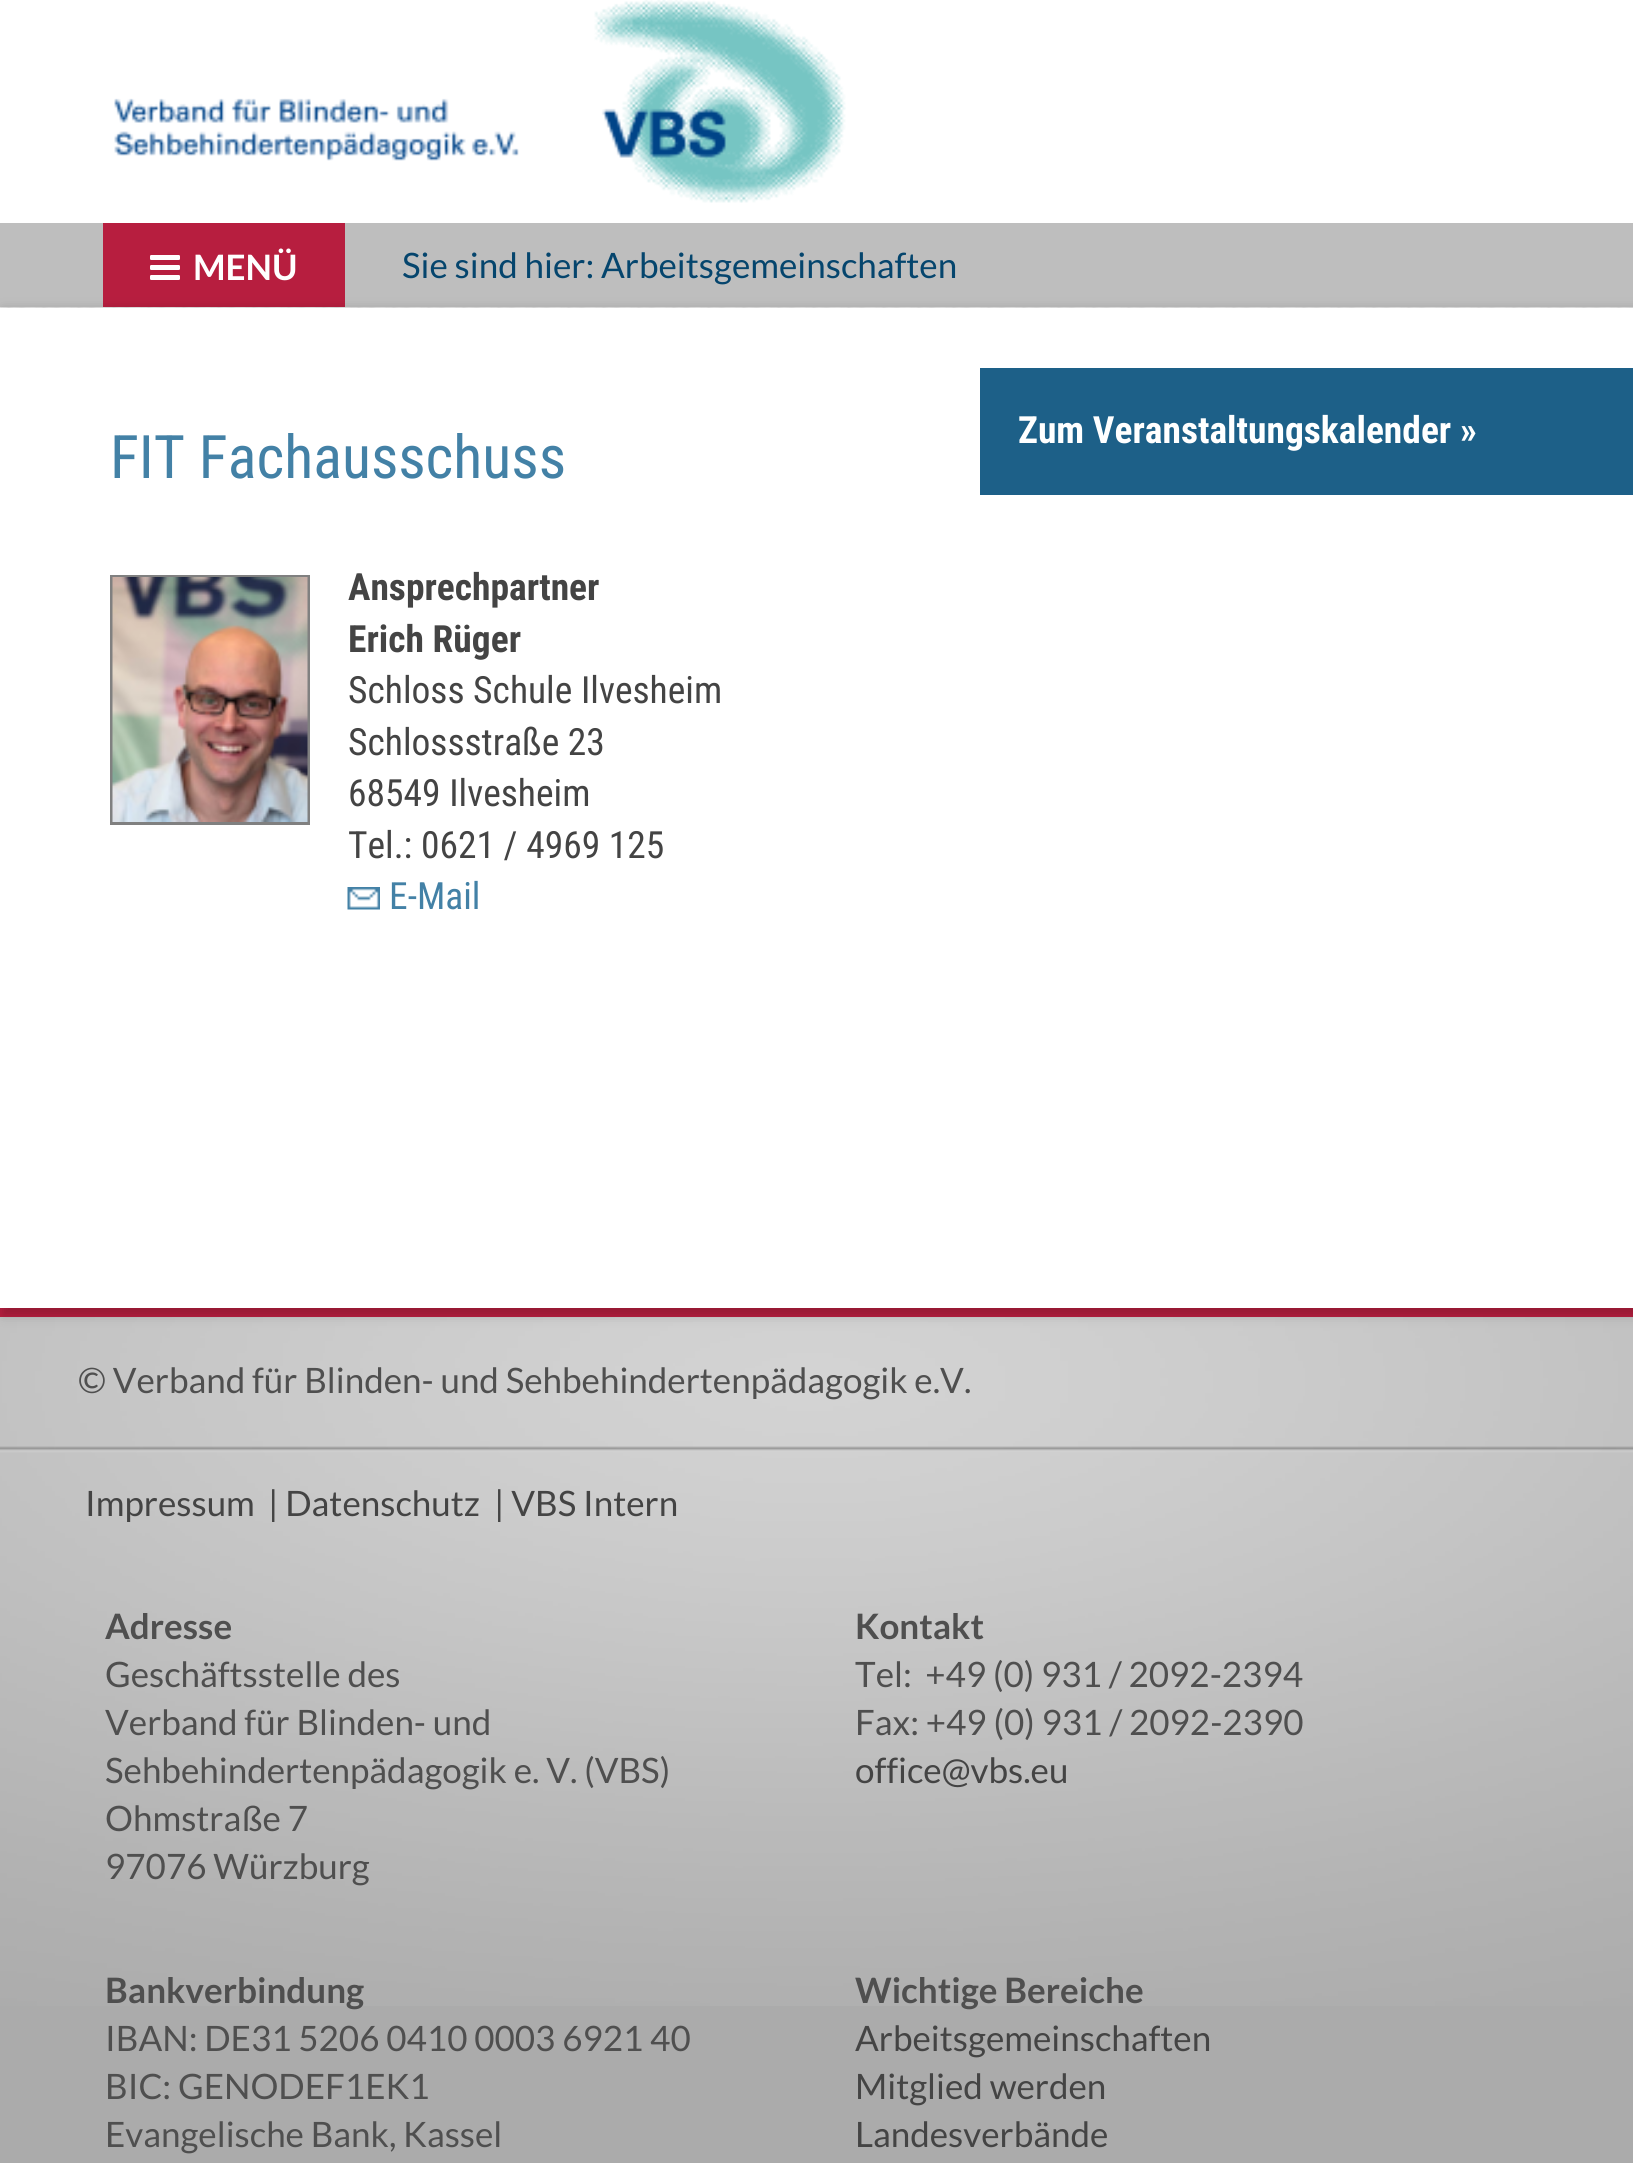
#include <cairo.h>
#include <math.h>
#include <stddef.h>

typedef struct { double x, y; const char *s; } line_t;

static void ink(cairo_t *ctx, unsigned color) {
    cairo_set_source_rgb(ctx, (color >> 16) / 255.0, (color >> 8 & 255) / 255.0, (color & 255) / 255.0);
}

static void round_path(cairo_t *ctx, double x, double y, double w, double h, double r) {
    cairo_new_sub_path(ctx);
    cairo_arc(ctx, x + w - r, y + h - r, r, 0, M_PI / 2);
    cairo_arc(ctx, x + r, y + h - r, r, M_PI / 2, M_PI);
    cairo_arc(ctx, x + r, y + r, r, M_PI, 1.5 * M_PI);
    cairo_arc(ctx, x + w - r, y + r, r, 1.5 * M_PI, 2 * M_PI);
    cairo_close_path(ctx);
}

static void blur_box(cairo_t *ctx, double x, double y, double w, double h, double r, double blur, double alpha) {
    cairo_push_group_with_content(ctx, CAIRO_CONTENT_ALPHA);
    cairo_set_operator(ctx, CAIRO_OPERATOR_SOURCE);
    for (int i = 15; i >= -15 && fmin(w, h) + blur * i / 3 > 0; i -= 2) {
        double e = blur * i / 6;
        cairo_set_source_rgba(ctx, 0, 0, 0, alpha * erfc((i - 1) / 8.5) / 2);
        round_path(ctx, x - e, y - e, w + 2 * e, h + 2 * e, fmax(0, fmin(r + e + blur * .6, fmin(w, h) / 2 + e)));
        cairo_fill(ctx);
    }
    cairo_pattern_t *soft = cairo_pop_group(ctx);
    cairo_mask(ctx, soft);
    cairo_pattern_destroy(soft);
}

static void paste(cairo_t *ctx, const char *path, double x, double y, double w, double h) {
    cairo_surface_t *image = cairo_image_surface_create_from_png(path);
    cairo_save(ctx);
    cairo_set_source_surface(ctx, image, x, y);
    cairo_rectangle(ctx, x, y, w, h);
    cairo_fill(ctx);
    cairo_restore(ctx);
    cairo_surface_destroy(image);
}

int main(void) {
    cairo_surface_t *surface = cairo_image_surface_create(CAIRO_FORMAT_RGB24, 1633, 2163);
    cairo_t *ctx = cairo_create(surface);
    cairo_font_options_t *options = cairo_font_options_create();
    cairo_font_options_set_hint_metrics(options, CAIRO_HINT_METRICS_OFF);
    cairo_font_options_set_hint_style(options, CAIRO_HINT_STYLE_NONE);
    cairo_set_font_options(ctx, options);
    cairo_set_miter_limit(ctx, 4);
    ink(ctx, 0xFFFFFF);
    cairo_paint(ctx);
    paste(ctx, "media/1.png", 114, 0, 732, 203);
    ink(ctx, 0xBEBEBE);
    cairo_rectangle(ctx, 0, 223, 1633, 84);
    cairo_fill(ctx);
    ink(ctx, 0xB71E3F);
    cairo_rectangle(ctx, 103, 223, 242, 84);
    cairo_fill(ctx);
    paste(ctx, "media/2.png", 150, 255, 30, 25);
    cairo_select_font_face(ctx, "Lato", CAIRO_FONT_SLANT_NORMAL, CAIRO_FONT_WEIGHT_BOLD);
    cairo_set_font_size(ctx, 35);
    ink(ctx, 0xFFFFFF);
    cairo_move_to(ctx, 193, 280);
    cairo_show_text(ctx, "MENÜ");
    cairo_select_font_face(ctx, "Lato", CAIRO_FONT_SLANT_NORMAL, CAIRO_FONT_WEIGHT_NORMAL);
    ink(ctx, 0x05456D);
    cairo_move_to(ctx, 402, 278);
    cairo_show_text(ctx, "Sie sind hier: Arbeitsgemeinschaften");
    paste(ctx, "media/3.png", 0, 307, 1633, 1);
    ink(ctx, 0xB71E3F);
    cairo_rectangle(ctx, 0, 1308, 1633, 9);
    cairo_fill(ctx);
    paste(ctx, "media/6.png", 0, 1317, 1633, 689);
    ink(ctx, 0x000000);
    blur_box(ctx, 3, 310, 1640, 1005, 0, 6, 0.2);
    ink(ctx, 0xFFFFFF);
    cairo_rectangle(ctx, 0, 308, 1633, 1000);
    cairo_fill(ctx);
    cairo_select_font_face(ctx, "Roboto Condensed", CAIRO_FONT_SLANT_NORMAL, CAIRO_FONT_WEIGHT_NORMAL);
    cairo_set_font_size(ctx, 60);
    ink(ctx, 0x4381A6);
    cairo_move_to(ctx, 110, 478);
    cairo_show_text(ctx, "FIT Fachausschuss");
    ink(ctx, 0x1D6088);
    cairo_rectangle(ctx, 980, 368, 653, 127);
    cairo_fill(ctx);
    cairo_select_font_face(ctx, "Roboto Condensed", CAIRO_FONT_SLANT_NORMAL, CAIRO_FONT_WEIGHT_BOLD);
    cairo_set_font_size(ctx, 37.5);
    ink(ctx, 0xFFFFFF);
    cairo_move_to(ctx, 1018, 443);
    cairo_show_text(ctx, "Zum Veranstaltungskalender »");
    cairo_rectangle(ctx, 111.5, 576.5, 197, 247);
    ink(ctx, 0x808080);
    cairo_set_line_width(ctx, 3);
    cairo_stroke(ctx);
    paste(ctx, "media/4.png", 112, 577, 196, 245);
    ink(ctx, 0x444444);
    cairo_move_to(ctx, 348, 600);
    cairo_show_text(ctx, "Ansprechpartner");
    cairo_move_to(ctx, 348, 652);
    cairo_show_text(ctx, "Erich Rüger");
    cairo_select_font_face(ctx, "Roboto Condensed", CAIRO_FONT_SLANT_NORMAL, CAIRO_FONT_WEIGHT_NORMAL);
    {
        static const line_t items[] = {
            {348, 703, "Schloss Schule Ilvesheim"},
            {348, 755, "Schlossstraße 23"},
            {348, 806, "68549 Ilvesheim"},
            {348, 858, "Tel.: 0621 / 4969 125"},
        };
        for (size_t i = 0; i < sizeof items / sizeof *items; i++) {
            cairo_move_to(ctx, items[i].x, items[i].y);
            cairo_show_text(ctx, items[i].s);
        }
    }
    paste(ctx, "media/5.png", 347, 887, 33, 23);
    ink(ctx, 0x4381A6);
    cairo_move_to(ctx, 389, 909);
    cairo_show_text(ctx, "E-Mail");
    ink(ctx, 0xABABAB);
    cairo_rectangle(ctx, 0, 2006, 1633, 157);
    cairo_fill(ctx);
    cairo_select_font_face(ctx, "Lato", CAIRO_FONT_SLANT_NORMAL, CAIRO_FONT_WEIGHT_NORMAL);
    cairo_set_font_size(ctx, 35);
    ink(ctx, 0x4F4F4F);
    cairo_move_to(ctx, 78, 1393);
    cairo_show_text(ctx, "© Verband für Blinden- und Sehbehindertenpädagogik e.V.");
    ink(ctx, 0x444444);
    {
        static const line_t items[] = {
            {85, 1516, "Impressum"},
            {268, 1516, "| Datenschutz"},
            {494, 1516, "| VBS Intern"},
        };
        for (size_t i = 0; i < sizeof items / sizeof *items; i++) {
            cairo_move_to(ctx, items[i].x, items[i].y);
            cairo_show_text(ctx, items[i].s);
        }
    }
    cairo_select_font_face(ctx, "Lato", CAIRO_FONT_SLANT_NORMAL, CAIRO_FONT_WEIGHT_BOLD);
    ink(ctx, 0x4F4F4F);
    cairo_move_to(ctx, 105, 1639);
    cairo_show_text(ctx, "Adresse");
    cairo_select_font_face(ctx, "Lato", CAIRO_FONT_SLANT_NORMAL, CAIRO_FONT_WEIGHT_NORMAL);
    {
        static const line_t items[] = {
            {105, 1687, "Geschäftsstelle des"},
            {105, 1735, "Verband für Blinden- und"},
            {105, 1783, "Sehbehindertenpädagogik e. V. (VBS)"},
            {105, 1831, "Ohmstraße 7"},
            {105, 1879, "97076 Würzburg"},
        };
        for (size_t i = 0; i < sizeof items / sizeof *items; i++) {
            cairo_move_to(ctx, items[i].x, items[i].y);
            cairo_show_text(ctx, items[i].s);
        }
    }
    cairo_select_font_face(ctx, "Lato", CAIRO_FONT_SLANT_NORMAL, CAIRO_FONT_WEIGHT_BOLD);
    cairo_move_to(ctx, 855, 1639);
    cairo_show_text(ctx, "Kontakt");
    cairo_select_font_face(ctx, "Lato", CAIRO_FONT_SLANT_NORMAL, CAIRO_FONT_WEIGHT_NORMAL);
    cairo_move_to(ctx, 855, 1687);
    cairo_show_text(ctx, "Tel:  +49 (0) 931 / 2092-2394");
    cairo_move_to(ctx, 855, 1735);
    cairo_show_text(ctx, "Fax: +49 (0) 931 / 2092-2390");
    ink(ctx, 0x444444);
    cairo_move_to(ctx, 855, 1783);
    cairo_show_text(ctx, "office@vbs.eu");
    cairo_select_font_face(ctx, "Lato", CAIRO_FONT_SLANT_NORMAL, CAIRO_FONT_WEIGHT_BOLD);
    ink(ctx, 0x4F4F4F);
    cairo_move_to(ctx, 105, 2003);
    cairo_show_text(ctx, "Bankverbindung");
    cairo_select_font_face(ctx, "Lato", CAIRO_FONT_SLANT_NORMAL, CAIRO_FONT_WEIGHT_NORMAL);
    {
        static const line_t items[] = {
            {105, 2051, "IBAN: DE31 5206 0410 0003 6921 40"},
            {105, 2099, "BIC: GENODEF1EK1"},
            {105, 2147, "Evangelische Bank, Kassel"},
        };
        for (size_t i = 0; i < sizeof items / sizeof *items; i++) {
            cairo_move_to(ctx, items[i].x, items[i].y);
            cairo_show_text(ctx, items[i].s);
        }
    }
    cairo_select_font_face(ctx, "Lato", CAIRO_FONT_SLANT_NORMAL, CAIRO_FONT_WEIGHT_BOLD);
    cairo_move_to(ctx, 855, 2003);
    cairo_show_text(ctx, "Wichtige Bereiche");
    cairo_select_font_face(ctx, "Lato", CAIRO_FONT_SLANT_NORMAL, CAIRO_FONT_WEIGHT_NORMAL);
    ink(ctx, 0x444444);
    {
        static const line_t items[] = {
            {855, 2051, "Arbeitsgemeinschaften"},
            {855, 2099, "Mitglied werden"},
            {855, 2147, "Landesverbände"},
        };
        for (size_t i = 0; i < sizeof items / sizeof *items; i++) {
            cairo_move_to(ctx, items[i].x, items[i].y);
            cairo_show_text(ctx, items[i].s);
        }
    }
    cairo_surface_write_to_png(surface, "image.png");
    cairo_font_options_destroy(options);
    cairo_destroy(ctx);
    cairo_surface_destroy(surface);
    return 0;
}
